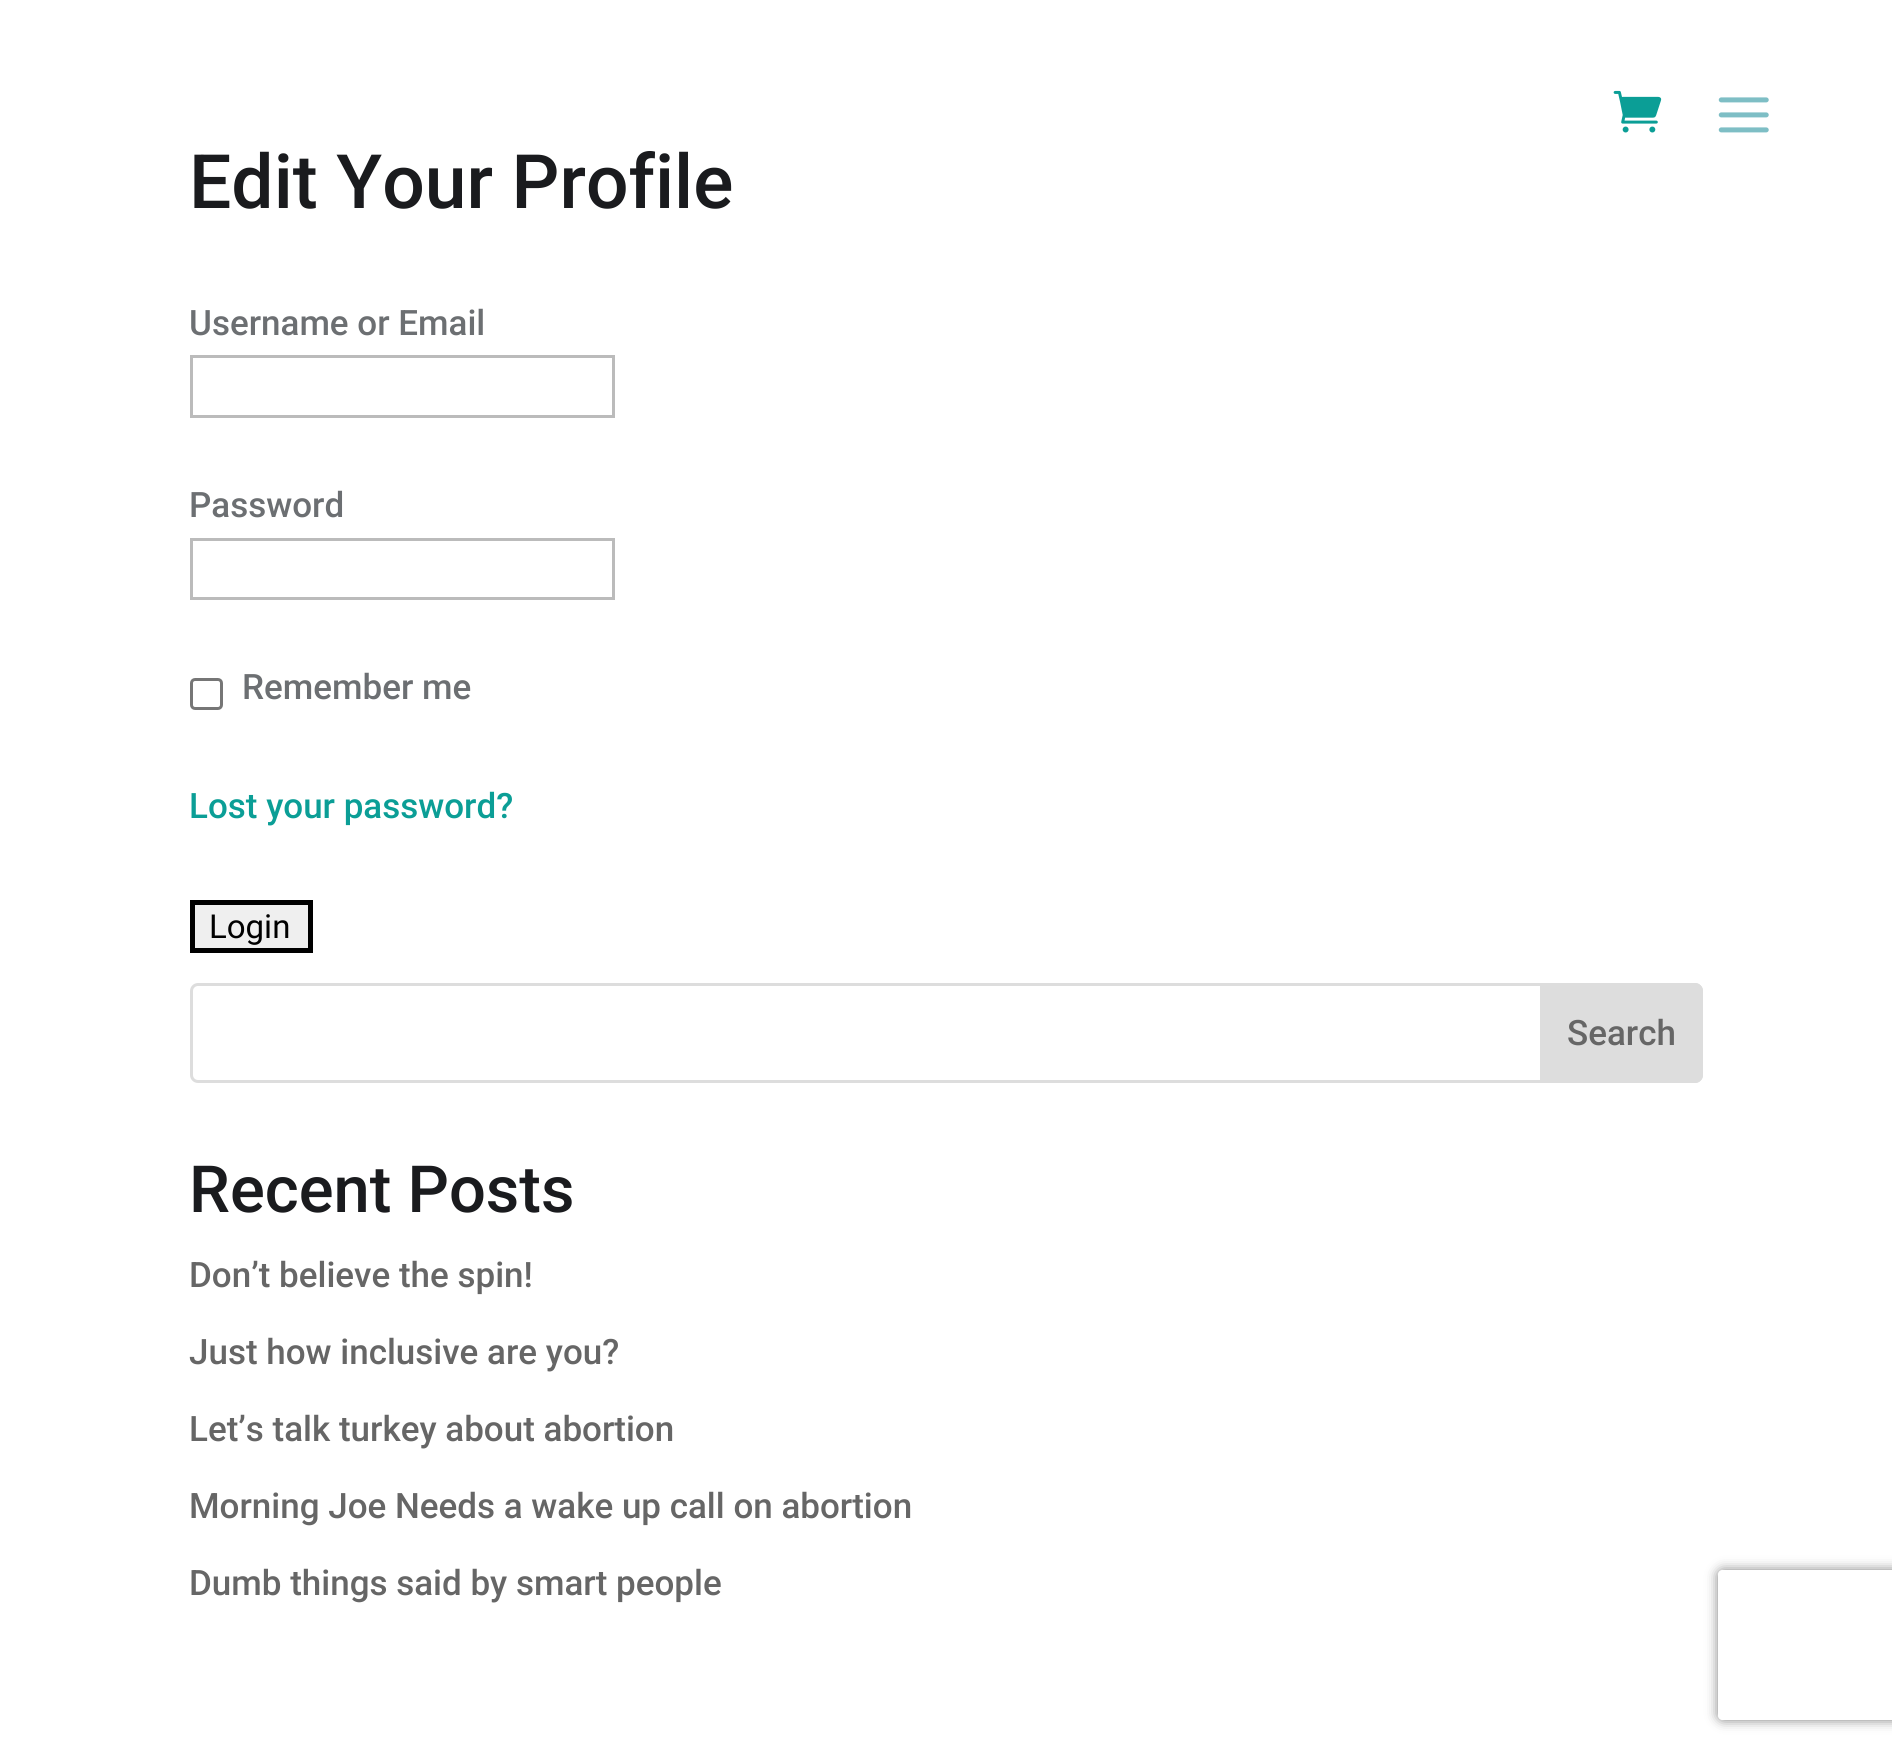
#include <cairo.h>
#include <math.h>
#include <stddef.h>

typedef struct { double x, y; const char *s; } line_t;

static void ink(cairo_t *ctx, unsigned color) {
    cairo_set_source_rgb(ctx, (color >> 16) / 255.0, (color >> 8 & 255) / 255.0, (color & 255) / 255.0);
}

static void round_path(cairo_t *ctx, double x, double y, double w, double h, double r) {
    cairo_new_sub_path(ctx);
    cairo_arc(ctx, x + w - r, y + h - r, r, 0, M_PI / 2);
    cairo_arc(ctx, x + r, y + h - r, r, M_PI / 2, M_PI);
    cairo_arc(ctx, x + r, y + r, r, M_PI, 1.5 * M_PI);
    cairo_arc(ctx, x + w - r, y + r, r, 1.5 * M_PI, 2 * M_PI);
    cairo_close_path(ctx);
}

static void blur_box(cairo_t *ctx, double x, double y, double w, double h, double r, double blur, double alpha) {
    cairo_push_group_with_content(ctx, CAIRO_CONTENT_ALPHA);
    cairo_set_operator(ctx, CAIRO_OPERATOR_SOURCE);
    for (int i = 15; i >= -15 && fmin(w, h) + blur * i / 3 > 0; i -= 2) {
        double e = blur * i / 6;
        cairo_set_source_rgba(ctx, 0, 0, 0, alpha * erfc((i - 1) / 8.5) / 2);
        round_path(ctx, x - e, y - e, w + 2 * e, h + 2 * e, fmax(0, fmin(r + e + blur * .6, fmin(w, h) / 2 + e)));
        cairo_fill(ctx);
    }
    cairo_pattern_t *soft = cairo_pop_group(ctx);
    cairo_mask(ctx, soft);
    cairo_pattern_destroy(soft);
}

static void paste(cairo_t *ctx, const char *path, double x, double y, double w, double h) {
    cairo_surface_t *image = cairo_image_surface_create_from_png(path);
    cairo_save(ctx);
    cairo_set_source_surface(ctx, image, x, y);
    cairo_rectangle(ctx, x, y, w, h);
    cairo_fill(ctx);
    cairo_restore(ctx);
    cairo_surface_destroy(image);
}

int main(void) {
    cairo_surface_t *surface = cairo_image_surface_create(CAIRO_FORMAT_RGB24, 1892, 1755);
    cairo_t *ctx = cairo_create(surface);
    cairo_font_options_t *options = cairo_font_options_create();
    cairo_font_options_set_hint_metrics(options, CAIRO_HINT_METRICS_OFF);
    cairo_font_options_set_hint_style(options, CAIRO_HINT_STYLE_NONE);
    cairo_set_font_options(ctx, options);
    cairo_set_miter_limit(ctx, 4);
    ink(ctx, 0xFFFFFF);
    cairo_paint(ctx);
    paste(ctx, "media/1.png", 1613, 90, 49, 43);
    paste(ctx, "media/2.png", 1718, 97, 51, 36);
    cairo_select_font_face(ctx, "Roboto Medium", CAIRO_FONT_SLANT_NORMAL, CAIRO_FONT_WEIGHT_NORMAL);
    cairo_set_font_size(ctx, 75);
    ink(ctx, 0x1A1B1E);
    cairo_move_to(ctx, 189, 208);
    cairo_show_text(ctx, "Edit Your Profile");
    cairo_set_font_size(ctx, 35);
    ink(ctx, 0x6C6F72);
    cairo_move_to(ctx, 189, 335);
    cairo_show_text(ctx, "Username or Email");
    cairo_rectangle(ctx, 191.5, 356.5, 422, 60);
    ink(ctx, 0xBBBBBB);
    cairo_set_line_width(ctx, 3);
    cairo_stroke(ctx);
    ink(ctx, 0x6C6F72);
    cairo_move_to(ctx, 189, 517);
    cairo_show_text(ctx, "Password");
    cairo_rectangle(ctx, 191.5, 539.5, 422, 59);
    ink(ctx, 0xBBBBBB);
    cairo_stroke(ctx);
    round_path(ctx, 191.5, 679.5, 30, 29, 3.5);
    ink(ctx, 0x767676);
    cairo_stroke(ctx);
    ink(ctx, 0x6C6F72);
    cairo_move_to(ctx, 242, 699);
    cairo_show_text(ctx, "Remember me");
    ink(ctx, 0x0B9E96);
    cairo_move_to(ctx, 189, 818);
    cairo_show_text(ctx, "Lost your password?");
    ink(ctx, 0xEFEFEF);
    cairo_rectangle(ctx, 192.5, 902.5, 118, 48);
    cairo_fill_preserve(ctx);
    ink(ctx, 0x000000);
    cairo_set_line_width(ctx, 5);
    cairo_stroke(ctx);
    cairo_select_font_face(ctx, "Roboto", CAIRO_FONT_SLANT_NORMAL, CAIRO_FONT_WEIGHT_NORMAL);
    cairo_set_font_size(ctx, 33);
    cairo_move_to(ctx, 209, 938);
    cairo_show_text(ctx, "Login");
    round_path(ctx, 191.5, 984.5, 1510, 97, 6.5);
    ink(ctx, 0xDDDDDD);
    cairo_set_line_width(ctx, 3);
    cairo_stroke(ctx);
    cairo_new_path(ctx);
    cairo_move_to(ctx, 1541.5, 984.5);
    cairo_line_to(ctx, 1695, 984.5);
    cairo_curve_to(ctx, 1698.5, 984.5, 1701.5, 987.5, 1701.5, 991);
    cairo_line_to(ctx, 1701.5, 1075);
    cairo_curve_to(ctx, 1701.5, 1078.5, 1698.5, 1081.5, 1695, 1081.5);
    cairo_line_to(ctx, 1541.5, 1081.5);
    cairo_close_path(ctx);
    cairo_fill_preserve(ctx);
    cairo_stroke(ctx);
    cairo_select_font_face(ctx, "Roboto Medium", CAIRO_FONT_SLANT_NORMAL, CAIRO_FONT_WEIGHT_NORMAL);
    cairo_set_font_size(ctx, 35);
    ink(ctx, 0x666666);
    cairo_move_to(ctx, 1567, 1045);
    cairo_show_text(ctx, "Search");
    cairo_set_font_size(ctx, 65);
    ink(ctx, 0x1A1B1E);
    cairo_move_to(ctx, 189, 1212);
    cairo_show_text(ctx, "Recent Posts");
    cairo_set_font_size(ctx, 35);
    ink(ctx, 0x666666);
    {
        static const line_t items[] = {
            {189, 1287, "Don’t believe the spin!"},
            {189, 1364, "Just how inclusive are you?"},
            {189, 1441, "Let’s talk turkey about abortion"},
            {189, 1518, "Morning Joe Needs a wake up call on abortion"},
            {189, 1595, "Dumb things said by smart people"},
        };
        for (size_t i = 0; i < sizeof items / sizeof *items; i++) {
            cairo_move_to(ctx, items[i].x, items[i].y);
            cairo_show_text(ctx, items[i].s);
        }
    }
    cairo_save(ctx);
    cairo_set_fill_rule(ctx, CAIRO_FILL_RULE_EVEN_ODD);
    cairo_new_path(ctx);
    cairo_move_to(ctx, 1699, 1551);
    cairo_line_to(ctx, 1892, 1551);
    cairo_line_to(ctx, 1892, 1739);
    cairo_line_to(ctx, 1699, 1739);
    cairo_close_path(ctx);
    cairo_move_to(ctx, 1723, 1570);
    cairo_line_to(ctx, 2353, 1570);
    cairo_curve_to(ctx, 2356, 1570, 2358, 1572, 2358, 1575);
    cairo_line_to(ctx, 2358, 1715);
    cairo_curve_to(ctx, 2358, 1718, 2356, 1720, 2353, 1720);
    cairo_line_to(ctx, 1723, 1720);
    cairo_curve_to(ctx, 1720, 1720, 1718, 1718, 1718, 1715);
    cairo_line_to(ctx, 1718, 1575);
    cairo_curve_to(ctx, 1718, 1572, 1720, 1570, 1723, 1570);
    cairo_close_path(ctx);
    cairo_clip(ctx);
    ink(ctx, 0x808080);
    blur_box(ctx, 1718, 1570, 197, 150, 5, 6, 1);
    cairo_restore(ctx);
    cairo_surface_write_to_png(surface, "image.png");
    cairo_font_options_destroy(options);
    cairo_destroy(ctx);
    cairo_surface_destroy(surface);
    return 0;
}
